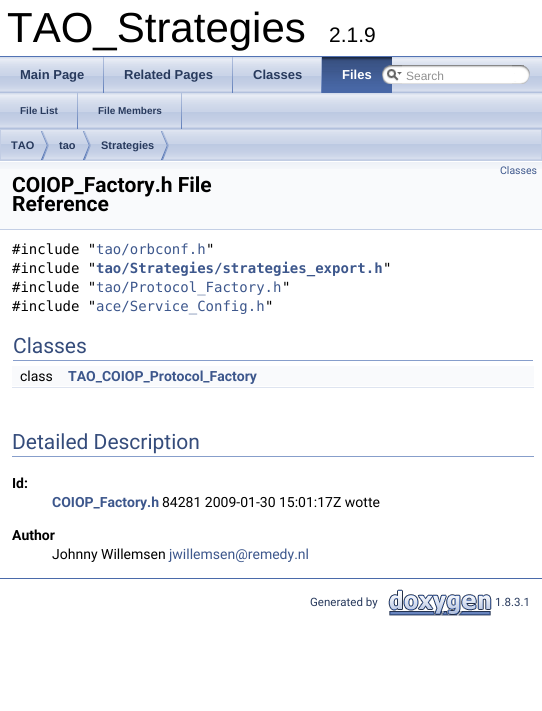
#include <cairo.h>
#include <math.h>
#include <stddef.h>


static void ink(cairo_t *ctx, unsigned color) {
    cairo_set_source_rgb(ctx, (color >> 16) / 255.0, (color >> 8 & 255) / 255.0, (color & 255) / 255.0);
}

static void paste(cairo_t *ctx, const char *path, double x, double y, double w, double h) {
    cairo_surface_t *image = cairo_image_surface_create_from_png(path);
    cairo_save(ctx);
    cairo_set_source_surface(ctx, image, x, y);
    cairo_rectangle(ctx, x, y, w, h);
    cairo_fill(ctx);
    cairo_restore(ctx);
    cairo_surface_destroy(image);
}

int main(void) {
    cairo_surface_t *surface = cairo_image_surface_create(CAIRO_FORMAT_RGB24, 542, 711);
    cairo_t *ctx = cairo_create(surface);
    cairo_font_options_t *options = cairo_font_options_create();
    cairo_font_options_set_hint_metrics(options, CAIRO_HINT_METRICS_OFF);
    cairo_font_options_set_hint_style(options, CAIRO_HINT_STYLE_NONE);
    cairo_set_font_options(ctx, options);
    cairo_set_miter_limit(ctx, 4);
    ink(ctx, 0xFFFFFF);
    cairo_paint(ctx);
    ink(ctx, 0x5373B4);
    cairo_rectangle(ctx, 0, 56, 542, 1);
    cairo_fill(ctx);
    cairo_select_font_face(ctx, "Liberation Sans", CAIRO_FONT_SLANT_NORMAL, CAIRO_FONT_WEIGHT_NORMAL);
    cairo_set_font_size(ctx, 42);
    ink(ctx, 0x000000);
    cairo_move_to(ctx, 7, 42);
    cairo_show_text(ctx, "TAO_Strategies");
    cairo_set_font_size(ctx, 21);
    cairo_move_to(ctx, 329, 42);
    cairo_show_text(ctx, "2.1.9");
    paste(ctx, "media/1.png", 0, 57, 542, 36);
    paste(ctx, "media/2.png", 103, 57, 1, 36);
    cairo_select_font_face(ctx, "Liberation Sans", CAIRO_FONT_SLANT_NORMAL, CAIRO_FONT_WEIGHT_BOLD);
    cairo_set_font_size(ctx, 13);
    ink(ctx, 0x283A5D);
    cairo_move_to(ctx, 20, 79);
    cairo_show_text(ctx, "Main Page");
    paste(ctx, "media/2.png", 232, 57, 1, 36);
    cairo_move_to(ctx, 124, 79);
    cairo_show_text(ctx, "Related Pages");
    paste(ctx, "media/2.png", 321, 57, 1, 36);
    cairo_move_to(ctx, 253, 79);
    cairo_show_text(ctx, "Classes");
    paste(ctx, "media/3.png", 322, 57, 70, 36);
    ink(ctx, 0xFFFFFF);
    cairo_move_to(ctx, 342, 79);
    cairo_show_text(ctx, "Files");
    paste(ctx, "media/4.png", 382, 65, 20, 19);
    paste(ctx, "media/5.png", 387, 69, 15, 12);
    paste(ctx, "media/6.png", 402, 65, 122, 19);
    cairo_select_font_face(ctx, "Liberation Sans", CAIRO_FONT_SLANT_NORMAL, CAIRO_FONT_WEIGHT_NORMAL);
    cairo_set_font_size(ctx, 12);
    ink(ctx, 0x909090);
    cairo_move_to(ctx, 406, 80);
    cairo_show_text(ctx, "Search");
    paste(ctx, "media/7.png", 512, 65, 18, 19);
    paste(ctx, "media/1.png", 0, 93, 542, 36);
    paste(ctx, "media/2.png", 77, 93, 1, 36);
    cairo_select_font_face(ctx, "Liberation Sans", CAIRO_FONT_SLANT_NORMAL, CAIRO_FONT_WEIGHT_BOLD);
    cairo_set_font_size(ctx, 10);
    ink(ctx, 0x283A5D);
    cairo_move_to(ctx, 20, 114);
    cairo_show_text(ctx, "File List");
    paste(ctx, "media/2.png", 181, 93, 1, 36);
    cairo_move_to(ctx, 98, 114);
    cairo_show_text(ctx, "File Members");
    paste(ctx, "media/8.png", 1, 130, 540, 30);
    cairo_rectangle(ctx, 0.5, 129.5, 541, 31);
    ink(ctx, 0xC2CDE4);
    cairo_set_line_width(ctx, 1);
    cairo_stroke(ctx);
    paste(ctx, "media/9.png", 41, 131, 8, 29);
    cairo_set_font_size(ctx, 11);
    ink(ctx, 0x283A5D);
    cairo_move_to(ctx, 11, 149);
    cairo_show_text(ctx, "TAO");
    paste(ctx, "media/9.png", 83, 131, 8, 29);
    cairo_move_to(ctx, 59, 149);
    cairo_show_text(ctx, "tao");
    paste(ctx, "media/9.png", 161, 131, 8, 29);
    cairo_move_to(ctx, 101, 149);
    cairo_show_text(ctx, "Strategies");
    ink(ctx, 0xF9FAFC);
    cairo_rectangle(ctx, 0, 169, 542, 60);
    cairo_fill(ctx);
    paste(ctx, "media/10.png", 0, 161, 542, 8);
    ink(ctx, 0xC4CFE5);
    cairo_rectangle(ctx, 0, 229, 542, 1);
    cairo_fill(ctx);
    cairo_select_font_face(ctx, "Roboto", CAIRO_FONT_SLANT_NORMAL, CAIRO_FONT_WEIGHT_NORMAL);
    cairo_set_font_size(ctx, 10.5);
    ink(ctx, 0x3D578C);
    cairo_move_to(ctx, 500, 174);
    cairo_show_text(ctx, "Classes");
    cairo_select_font_face(ctx, "Roboto", CAIRO_FONT_SLANT_NORMAL, CAIRO_FONT_WEIGHT_BOLD);
    cairo_set_font_size(ctx, 21);
    ink(ctx, 0x000000);
    cairo_move_to(ctx, 12, 192);
    cairo_show_text(ctx, "COIOP_Factory.h File");
    cairo_move_to(ctx, 12, 211);
    cairo_show_text(ctx, "Reference");
    cairo_select_font_face(ctx, "DejaVu Sans Mono", CAIRO_FONT_SLANT_NORMAL, CAIRO_FONT_WEIGHT_NORMAL);
    cairo_set_font_size(ctx, 14);
    cairo_move_to(ctx, 12, 254);
    cairo_show_text(ctx, "#include \"");
    ink(ctx, 0x3D578C);
    cairo_move_to(ctx, 96, 254);
    cairo_show_text(ctx, "tao/orbconf.h");
    ink(ctx, 0x000000);
    cairo_move_to(ctx, 206, 254);
    cairo_show_text(ctx, "\"");
    cairo_move_to(ctx, 12, 273);
    cairo_show_text(ctx, "#include \"");
    cairo_select_font_face(ctx, "DejaVu Sans Mono", CAIRO_FONT_SLANT_NORMAL, CAIRO_FONT_WEIGHT_BOLD);
    ink(ctx, 0x3D578C);
    cairo_move_to(ctx, 96, 273);
    cairo_show_text(ctx, "tao/Strategies/strategies_export.h");
    cairo_select_font_face(ctx, "DejaVu Sans Mono", CAIRO_FONT_SLANT_NORMAL, CAIRO_FONT_WEIGHT_NORMAL);
    ink(ctx, 0x000000);
    cairo_move_to(ctx, 383, 273);
    cairo_show_text(ctx, "\"");
    cairo_move_to(ctx, 12, 292);
    cairo_show_text(ctx, "#include \"");
    ink(ctx, 0x3D578C);
    cairo_move_to(ctx, 96, 292);
    cairo_show_text(ctx, "tao/Protocol_Factory.h");
    ink(ctx, 0x000000);
    cairo_move_to(ctx, 282, 292);
    cairo_show_text(ctx, "\"");
    cairo_move_to(ctx, 12, 311);
    cairo_show_text(ctx, "#include \"");
    ink(ctx, 0x3D578C);
    cairo_move_to(ctx, 96, 311);
    cairo_show_text(ctx, "ace/Service_Config.h");
    ink(ctx, 0x000000);
    cairo_move_to(ctx, 265, 311);
    cairo_show_text(ctx, "\"");
    ink(ctx, 0x879ECB);
    cairo_rectangle(ctx, 13, 360, 520, 1);
    cairo_fill(ctx);
    cairo_select_font_face(ctx, "Roboto", CAIRO_FONT_SLANT_NORMAL, CAIRO_FONT_WEIGHT_NORMAL);
    cairo_set_font_size(ctx, 21);
    ink(ctx, 0x354C7B);
    cairo_move_to(ctx, 13, 353);
    cairo_show_text(ctx, "Classes");
    ink(ctx, 0xF9FAFC);
    cairo_rectangle(ctx, 12, 366, 522, 20);
    cairo_fill(ctx);
    cairo_set_font_size(ctx, 14);
    ink(ctx, 0x000000);
    cairo_move_to(ctx, 20, 381);
    cairo_show_text(ctx, "class");
    cairo_select_font_face(ctx, "Roboto", CAIRO_FONT_SLANT_NORMAL, CAIRO_FONT_WEIGHT_BOLD);
    ink(ctx, 0x3D578C);
    cairo_move_to(ctx, 68, 381);
    cairo_show_text(ctx, "TAO_COIOP_Protocol_Factory");
    ink(ctx, 0xDEE4F0);
    cairo_rectangle(ctx, 12, 387, 522, 1);
    cairo_fill(ctx);
    ink(ctx, 0x879ECB);
    cairo_rectangle(ctx, 12, 456, 522, 1);
    cairo_fill(ctx);
    cairo_select_font_face(ctx, "Roboto", CAIRO_FONT_SLANT_NORMAL, CAIRO_FONT_WEIGHT_NORMAL);
    cairo_set_font_size(ctx, 21);
    ink(ctx, 0x354C7B);
    cairo_move_to(ctx, 12, 449);
    cairo_show_text(ctx, "Detailed Description");
    cairo_select_font_face(ctx, "Roboto", CAIRO_FONT_SLANT_NORMAL, CAIRO_FONT_WEIGHT_BOLD);
    cairo_set_font_size(ctx, 14);
    ink(ctx, 0x000000);
    cairo_move_to(ctx, 12, 488);
    cairo_show_text(ctx, "Id:");
    ink(ctx, 0x3D578C);
    cairo_move_to(ctx, 52, 507);
    cairo_show_text(ctx, "COIOP_Factory.h");
    cairo_select_font_face(ctx, "Roboto", CAIRO_FONT_SLANT_NORMAL, CAIRO_FONT_WEIGHT_NORMAL);
    ink(ctx, 0x000000);
    cairo_move_to(ctx, 162, 507);
    cairo_show_text(ctx, "84281 2009-01-30 15:01:17Z wotte");
    cairo_select_font_face(ctx, "Roboto", CAIRO_FONT_SLANT_NORMAL, CAIRO_FONT_WEIGHT_BOLD);
    cairo_move_to(ctx, 12, 540);
    cairo_show_text(ctx, "Author");
    cairo_select_font_face(ctx, "Roboto", CAIRO_FONT_SLANT_NORMAL, CAIRO_FONT_WEIGHT_NORMAL);
    cairo_move_to(ctx, 52, 559);
    cairo_show_text(ctx, "Johnny Willemsen");
    ink(ctx, 0x3D578C);
    cairo_move_to(ctx, 169, 559);
    cairo_show_text(ctx, "jwillemsen@remedy.nl");
    ink(ctx, 0x4A6AAA);
    cairo_rectangle(ctx, 0, 578, 542, 1);
    cairo_fill(ctx);
    cairo_set_font_size(ctx, 11.5);
    ink(ctx, 0x283A5D);
    cairo_move_to(ctx, 310, 606);
    cairo_show_text(ctx, "Generated by");
    paste(ctx, "media/11.png", 388, 589, 104, 27);
    cairo_move_to(ctx, 495, 606);
    cairo_show_text(ctx, "1.8.3.1");
    cairo_surface_write_to_png(surface, "image.png");
    cairo_font_options_destroy(options);
    cairo_destroy(ctx);
    cairo_surface_destroy(surface);
    return 0;
}
